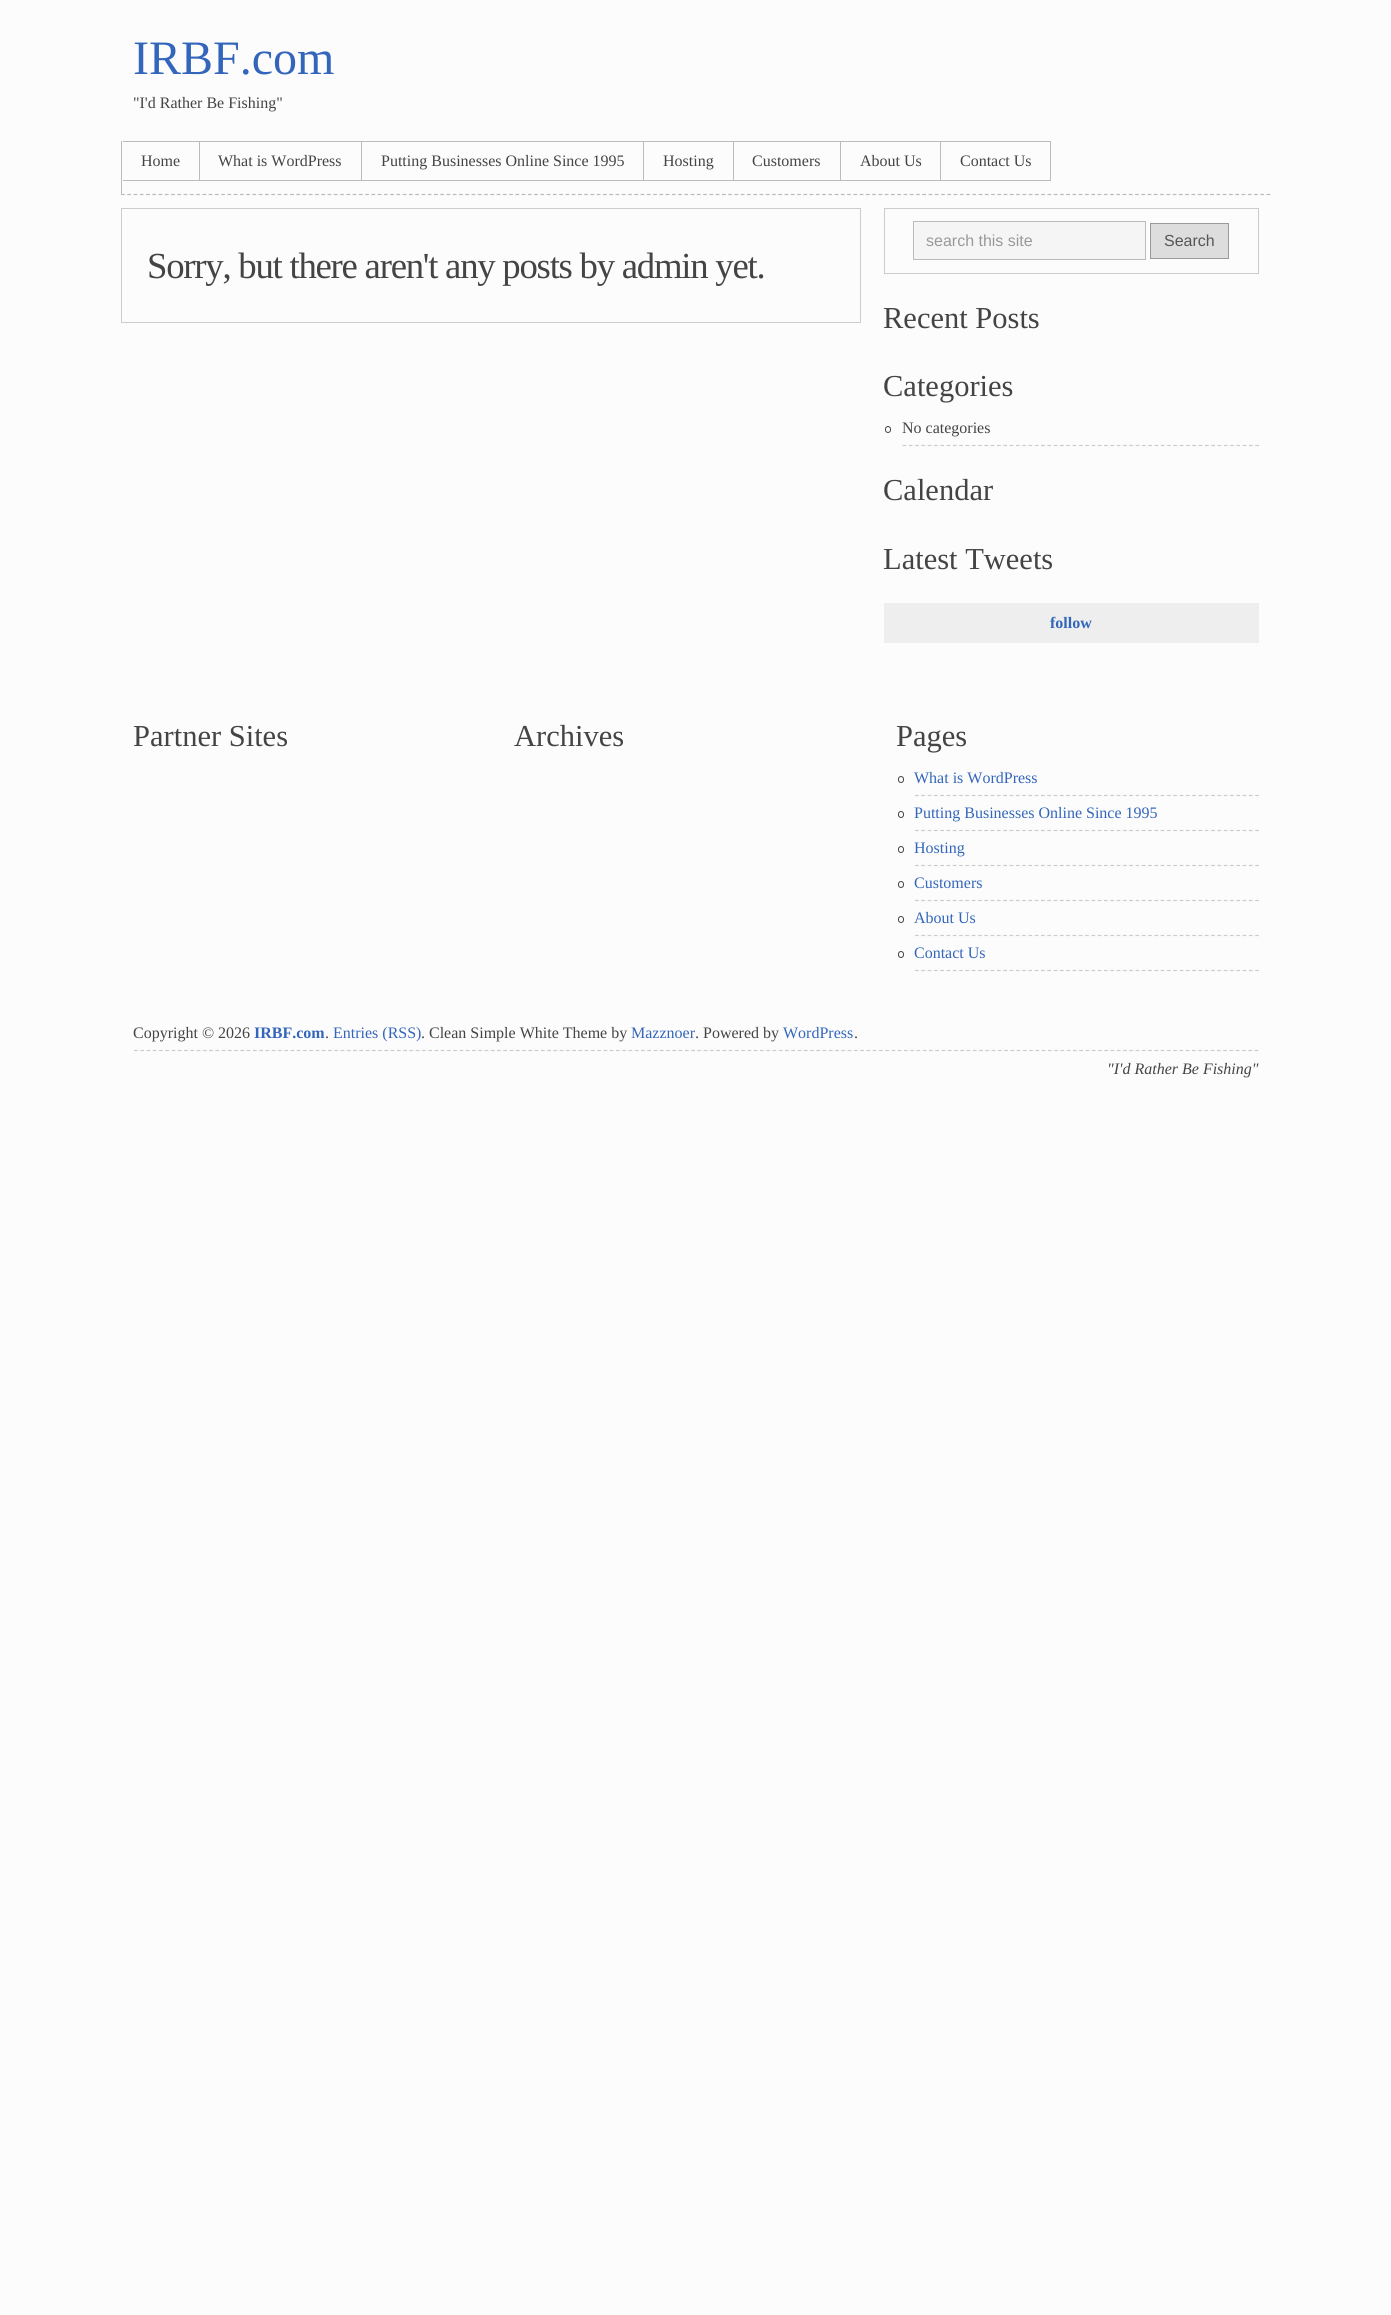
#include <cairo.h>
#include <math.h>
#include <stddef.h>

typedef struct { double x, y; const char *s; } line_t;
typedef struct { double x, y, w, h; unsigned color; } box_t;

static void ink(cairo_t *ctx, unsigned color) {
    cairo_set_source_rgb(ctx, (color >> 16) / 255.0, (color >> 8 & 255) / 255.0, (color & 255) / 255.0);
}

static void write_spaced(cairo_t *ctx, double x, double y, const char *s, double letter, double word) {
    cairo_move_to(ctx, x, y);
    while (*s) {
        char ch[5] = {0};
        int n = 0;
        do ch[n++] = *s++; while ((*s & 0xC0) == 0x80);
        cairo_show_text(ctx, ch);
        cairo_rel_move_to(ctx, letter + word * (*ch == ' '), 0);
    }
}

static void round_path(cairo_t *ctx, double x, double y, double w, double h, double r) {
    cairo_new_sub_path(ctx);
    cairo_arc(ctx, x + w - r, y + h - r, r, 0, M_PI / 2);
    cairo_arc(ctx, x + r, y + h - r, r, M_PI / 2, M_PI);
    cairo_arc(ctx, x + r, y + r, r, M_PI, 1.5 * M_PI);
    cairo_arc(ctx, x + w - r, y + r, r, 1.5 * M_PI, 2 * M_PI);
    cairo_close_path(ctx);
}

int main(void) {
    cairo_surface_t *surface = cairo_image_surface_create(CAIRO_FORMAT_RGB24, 1391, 2315);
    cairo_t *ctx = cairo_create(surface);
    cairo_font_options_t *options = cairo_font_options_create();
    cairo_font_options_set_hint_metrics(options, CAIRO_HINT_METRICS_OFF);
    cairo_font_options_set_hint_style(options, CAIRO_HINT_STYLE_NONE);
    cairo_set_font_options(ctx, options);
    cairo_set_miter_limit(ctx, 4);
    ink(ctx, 0xFCFCFC);
    cairo_paint(ctx);
    cairo_select_font_face(ctx, "Liberation Serif", CAIRO_FONT_SLANT_NORMAL, CAIRO_FONT_WEIGHT_NORMAL);
    cairo_set_font_size(ctx, 48);
    ink(ctx, 0x3366BB);
    cairo_move_to(ctx, 133, 74);
    cairo_show_text(ctx, "IRBF.com");
    cairo_set_font_size(ctx, 16);
    ink(ctx, 0x444444);
    cairo_move_to(ctx, 133, 108);
    cairo_show_text(ctx, "\"I'd Rather Be Fishing\"");
    cairo_new_path(ctx);
    cairo_move_to(ctx, 121, 194.5);
    cairo_line_to(ctx, 1271, 194.5);
    ink(ctx, 0xBBBBBB);
    cairo_set_line_width(ctx, 1.2);
    cairo_set_dash(ctx, (double[]){3.75, 2.51}, 2, 0);
    cairo_stroke(ctx);
    {
        static const box_t items[] = {
            {121, 141, 1, 54, 0xBBBBBB},
            {123, 141, 928, 1, 0xBBBBBB},
            {199, 141, 1, 40, 0xBBBBBB},
            {123, 180, 77, 1, 0xBBBBBB},
        };
        for (size_t i = 0; i < sizeof items / sizeof *items; i++) {
            ink(ctx, items[i].color);
            cairo_rectangle(ctx, items[i].x, items[i].y, items[i].w, items[i].h);
            cairo_fill(ctx);
        }
    }
    ink(ctx, 0x444444);
    cairo_move_to(ctx, 141, 166);
    cairo_show_text(ctx, "Home");
    ink(ctx, 0xBBBBBB);
    cairo_rectangle(ctx, 361, 141, 1, 40);
    cairo_fill(ctx);
    cairo_rectangle(ctx, 200, 180, 163, 1);
    cairo_fill(ctx);
    ink(ctx, 0x444444);
    cairo_move_to(ctx, 218, 166);
    cairo_show_text(ctx, "What is WordPress");
    ink(ctx, 0xBBBBBB);
    cairo_rectangle(ctx, 643, 141, 1, 40);
    cairo_fill(ctx);
    cairo_rectangle(ctx, 363, 180, 281, 1);
    cairo_fill(ctx);
    ink(ctx, 0x444444);
    cairo_move_to(ctx, 381, 166);
    cairo_show_text(ctx, "Putting Businesses Online Since 1995");
    ink(ctx, 0xBBBBBB);
    cairo_rectangle(ctx, 733, 141, 1, 40);
    cairo_fill(ctx);
    cairo_rectangle(ctx, 644, 180, 90, 1);
    cairo_fill(ctx);
    ink(ctx, 0x444444);
    cairo_move_to(ctx, 663, 166);
    cairo_show_text(ctx, "Hosting");
    ink(ctx, 0xBBBBBB);
    cairo_rectangle(ctx, 840, 141, 1, 40);
    cairo_fill(ctx);
    cairo_rectangle(ctx, 734, 180, 107, 1);
    cairo_fill(ctx);
    ink(ctx, 0x444444);
    cairo_move_to(ctx, 752, 166);
    cairo_show_text(ctx, "Customers");
    ink(ctx, 0xBBBBBB);
    cairo_rectangle(ctx, 940, 141, 1, 40);
    cairo_fill(ctx);
    cairo_rectangle(ctx, 841, 180, 100, 1);
    cairo_fill(ctx);
    ink(ctx, 0x444444);
    cairo_move_to(ctx, 860, 166);
    cairo_show_text(ctx, "About Us");
    ink(ctx, 0xBBBBBB);
    cairo_rectangle(ctx, 1050, 141, 1, 40);
    cairo_fill(ctx);
    cairo_rectangle(ctx, 941, 180, 110, 1);
    cairo_fill(ctx);
    ink(ctx, 0x444444);
    cairo_move_to(ctx, 960, 166);
    cairo_show_text(ctx, "Contact Us");
    cairo_rectangle(ctx, 121.5, 208.5, 739, 114);
    ink(ctx, 0xCCCCCC);
    cairo_set_line_width(ctx, 1);
    cairo_set_dash(ctx, NULL, 0, 0);
    cairo_stroke(ctx);
    cairo_set_font_size(ctx, 36.75);
    ink(ctx, 0x444444);
    write_spaced(ctx, 147, 278, "Sorry, but there aren't any posts by admin yet.", -1.25, 0);
    cairo_rectangle(ctx, 884.5, 208.5, 374, 65);
    ink(ctx, 0xCCCCCC);
    cairo_stroke(ctx);
    ink(ctx, 0xF5F5F5);
    cairo_rectangle(ctx, 913.5, 221.5, 232, 38);
    cairo_fill_preserve(ctx);
    ink(ctx, 0xBBBBBB);
    cairo_stroke(ctx);
    cairo_select_font_face(ctx, "Liberation Sans", CAIRO_FONT_SLANT_NORMAL, CAIRO_FONT_WEIGHT_NORMAL);
    cairo_set_font_size(ctx, 16);
    ink(ctx, 0x999999);
    cairo_move_to(ctx, 926, 246);
    cairo_show_text(ctx, "search this site");
    ink(ctx, 0xDDDDDD);
    cairo_rectangle(ctx, 1150.5, 223.5, 78, 35);
    cairo_fill_preserve(ctx);
    ink(ctx, 0x999999);
    cairo_stroke(ctx);
    ink(ctx, 0x555555);
    cairo_move_to(ctx, 1164, 246);
    cairo_show_text(ctx, "Search");
    cairo_select_font_face(ctx, "Liberation Serif", CAIRO_FONT_SLANT_NORMAL, CAIRO_FONT_WEIGHT_NORMAL);
    cairo_set_font_size(ctx, 30.5);
    ink(ctx, 0x444444);
    cairo_move_to(ctx, 883, 328);
    cairo_show_text(ctx, "Recent Posts");
    cairo_move_to(ctx, 883, 396);
    cairo_show_text(ctx, "Categories");
    cairo_new_path(ctx);
    cairo_move_to(ctx, 902.5, 445.5);
    cairo_line_to(ctx, 1259, 445.5);
    ink(ctx, 0xCCCCCC);
    cairo_set_line_width(ctx, 1.2);
    cairo_set_dash(ctx, (double[]){3.75, 2.55}, 2, 0);
    cairo_stroke(ctx);
    round_path(ctx, 885.5, 426.5, 5, 6, 2.5);
    ink(ctx, 0x444444);
    cairo_set_line_width(ctx, 1);
    cairo_set_dash(ctx, NULL, 0, 0);
    cairo_stroke(ctx);
    cairo_set_font_size(ctx, 16);
    cairo_move_to(ctx, 902, 433);
    cairo_show_text(ctx, "No categories");
    cairo_set_font_size(ctx, 30.5);
    cairo_move_to(ctx, 883, 500);
    cairo_show_text(ctx, "Calendar");
    cairo_move_to(ctx, 883, 569);
    cairo_show_text(ctx, "Latest Tweets");
    ink(ctx, 0xEEEEEE);
    cairo_rectangle(ctx, 884, 603, 375, 40);
    cairo_fill(ctx);
    cairo_select_font_face(ctx, "Liberation Serif", CAIRO_FONT_SLANT_NORMAL, CAIRO_FONT_WEIGHT_BOLD);
    cairo_set_font_size(ctx, 16);
    ink(ctx, 0x3366BB);
    cairo_move_to(ctx, 1050, 628);
    cairo_show_text(ctx, "follow");
    cairo_select_font_face(ctx, "Liberation Serif", CAIRO_FONT_SLANT_NORMAL, CAIRO_FONT_WEIGHT_NORMAL);
    cairo_set_font_size(ctx, 30.5);
    ink(ctx, 0x444444);
    {
        static const line_t items[] = {
            {133, 746, "Partner Sites"},
            {514, 746, "Archives"},
            {896, 746, "Pages"},
        };
        for (size_t i = 0; i < sizeof items / sizeof *items; i++) {
            cairo_move_to(ctx, items[i].x, items[i].y);
            cairo_show_text(ctx, items[i].s);
        }
    }
    cairo_new_path(ctx);
    cairo_move_to(ctx, 915, 795.5);
    cairo_line_to(ctx, 1259, 795.5);
    ink(ctx, 0xCCCCCC);
    cairo_set_line_width(ctx, 1.2);
    cairo_set_dash(ctx, (double[]){3.75, 2.55}, 2, 0);
    cairo_stroke(ctx);
    round_path(ctx, 898.5, 776.5, 5, 6, 2.5);
    ink(ctx, 0x444444);
    cairo_set_line_width(ctx, 1);
    cairo_set_dash(ctx, NULL, 0, 0);
    cairo_stroke(ctx);
    cairo_set_font_size(ctx, 16);
    ink(ctx, 0x3366BB);
    cairo_move_to(ctx, 914, 783);
    cairo_show_text(ctx, "What is WordPress");
    cairo_new_path(ctx);
    cairo_move_to(ctx, 915, 830.5);
    cairo_line_to(ctx, 1259, 830.5);
    ink(ctx, 0xCCCCCC);
    cairo_set_line_width(ctx, 1.2);
    cairo_set_dash(ctx, (double[]){3.75, 2.55}, 2, 0);
    cairo_stroke(ctx);
    round_path(ctx, 898.5, 811.5, 5, 6, 2.5);
    ink(ctx, 0x444444);
    cairo_set_line_width(ctx, 1);
    cairo_set_dash(ctx, NULL, 0, 0);
    cairo_stroke(ctx);
    ink(ctx, 0x3366BB);
    cairo_move_to(ctx, 914, 818);
    cairo_show_text(ctx, "Putting Businesses Online Since 1995");
    cairo_new_path(ctx);
    cairo_move_to(ctx, 915, 865.5);
    cairo_line_to(ctx, 1259, 865.5);
    ink(ctx, 0xCCCCCC);
    cairo_set_line_width(ctx, 1.2);
    cairo_set_dash(ctx, (double[]){3.75, 2.55}, 2, 0);
    cairo_stroke(ctx);
    round_path(ctx, 898.5, 846.5, 5, 6, 2.5);
    ink(ctx, 0x444444);
    cairo_set_line_width(ctx, 1);
    cairo_set_dash(ctx, NULL, 0, 0);
    cairo_stroke(ctx);
    ink(ctx, 0x3366BB);
    cairo_move_to(ctx, 914, 853);
    cairo_show_text(ctx, "Hosting");
    cairo_new_path(ctx);
    cairo_move_to(ctx, 915, 900.5);
    cairo_line_to(ctx, 1259, 900.5);
    ink(ctx, 0xCCCCCC);
    cairo_set_line_width(ctx, 1.2);
    cairo_set_dash(ctx, (double[]){3.75, 2.55}, 2, 0);
    cairo_stroke(ctx);
    round_path(ctx, 898.5, 881.5, 5, 6, 2.5);
    ink(ctx, 0x444444);
    cairo_set_line_width(ctx, 1);
    cairo_set_dash(ctx, NULL, 0, 0);
    cairo_stroke(ctx);
    ink(ctx, 0x3366BB);
    cairo_move_to(ctx, 914, 888);
    cairo_show_text(ctx, "Customers");
    cairo_new_path(ctx);
    cairo_move_to(ctx, 915, 935.5);
    cairo_line_to(ctx, 1259, 935.5);
    ink(ctx, 0xCCCCCC);
    cairo_set_line_width(ctx, 1.2);
    cairo_set_dash(ctx, (double[]){3.75, 2.55}, 2, 0);
    cairo_stroke(ctx);
    round_path(ctx, 898.5, 916.5, 5, 6, 2.5);
    ink(ctx, 0x444444);
    cairo_set_line_width(ctx, 1);
    cairo_set_dash(ctx, NULL, 0, 0);
    cairo_stroke(ctx);
    ink(ctx, 0x3366BB);
    cairo_move_to(ctx, 914, 923);
    cairo_show_text(ctx, "About Us");
    cairo_new_path(ctx);
    cairo_move_to(ctx, 915, 970.5);
    cairo_line_to(ctx, 1259, 970.5);
    ink(ctx, 0xCCCCCC);
    cairo_set_line_width(ctx, 1.2);
    cairo_set_dash(ctx, (double[]){3.75, 2.55}, 2, 0);
    cairo_stroke(ctx);
    round_path(ctx, 898.5, 951.5, 5, 6, 2.5);
    ink(ctx, 0x444444);
    cairo_set_line_width(ctx, 1);
    cairo_set_dash(ctx, NULL, 0, 0);
    cairo_stroke(ctx);
    ink(ctx, 0x3366BB);
    cairo_move_to(ctx, 914, 958);
    cairo_show_text(ctx, "Contact Us");
    ink(ctx, 0x444444);
    cairo_move_to(ctx, 133, 1038);
    cairo_show_text(ctx, "Copyright © 2026");
    cairo_select_font_face(ctx, "Liberation Serif", CAIRO_FONT_SLANT_NORMAL, CAIRO_FONT_WEIGHT_BOLD);
    ink(ctx, 0x3366BB);
    cairo_move_to(ctx, 254, 1038);
    cairo_show_text(ctx, "IRBF.com");
    cairo_select_font_face(ctx, "Liberation Serif", CAIRO_FONT_SLANT_NORMAL, CAIRO_FONT_WEIGHT_NORMAL);
    ink(ctx, 0x444444);
    cairo_move_to(ctx, 325, 1038);
    cairo_show_text(ctx, ".");
    ink(ctx, 0x3366BB);
    cairo_move_to(ctx, 333, 1038);
    cairo_show_text(ctx, "Entries (RSS)");
    ink(ctx, 0x444444);
    cairo_move_to(ctx, 421, 1038);
    cairo_show_text(ctx, ". Clean Simple White Theme by");
    ink(ctx, 0x3366BB);
    cairo_move_to(ctx, 631, 1038);
    cairo_show_text(ctx, "Mazznoer");
    ink(ctx, 0x444444);
    cairo_move_to(ctx, 695, 1038);
    cairo_show_text(ctx, ". Powered by");
    ink(ctx, 0x3366BB);
    cairo_move_to(ctx, 783, 1038);
    cairo_show_text(ctx, "WordPress");
    ink(ctx, 0x444444);
    cairo_move_to(ctx, 854, 1038);
    cairo_show_text(ctx, ".");
    cairo_new_path(ctx);
    cairo_move_to(ctx, 134, 1050.5);
    cairo_line_to(ctx, 1259, 1050.5);
    ink(ctx, 0xCCCCCC);
    cairo_set_line_width(ctx, 1.2);
    cairo_set_dash(ctx, (double[]){3.75, 2.51}, 2, 0);
    cairo_stroke(ctx);
    cairo_select_font_face(ctx, "Liberation Serif", CAIRO_FONT_SLANT_ITALIC, CAIRO_FONT_WEIGHT_NORMAL);
    ink(ctx, 0x444444);
    cairo_move_to(ctx, 1107, 1074);
    cairo_show_text(ctx, "\"I'd Rather Be Fishing\"");
    cairo_surface_write_to_png(surface, "image.png");
    cairo_font_options_destroy(options);
    cairo_destroy(ctx);
    cairo_surface_destroy(surface);
    return 0;
}
